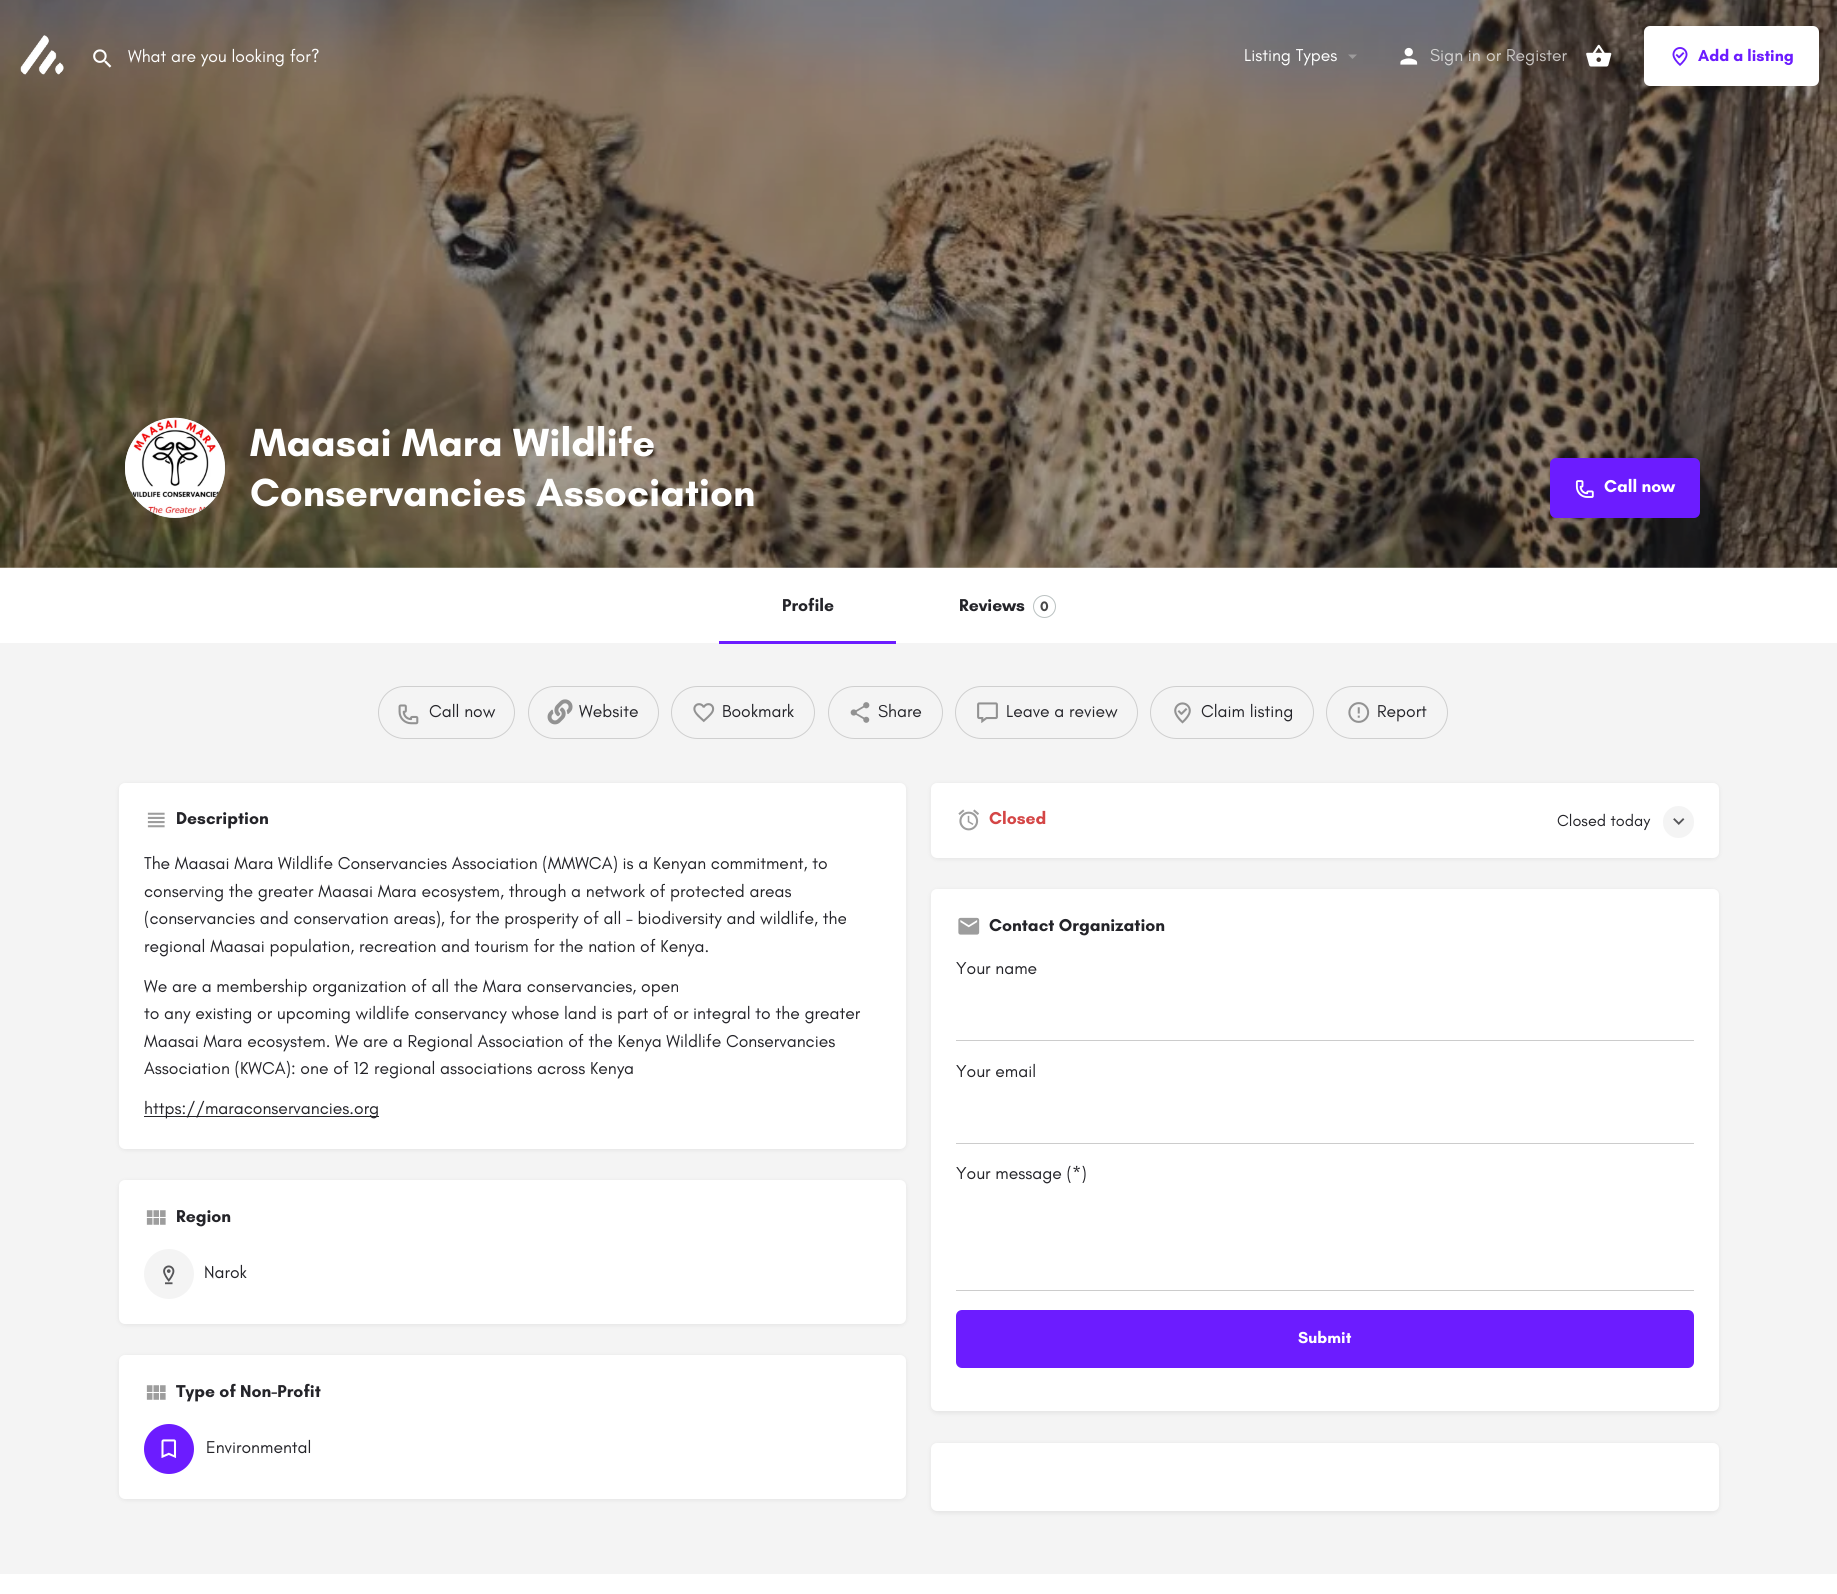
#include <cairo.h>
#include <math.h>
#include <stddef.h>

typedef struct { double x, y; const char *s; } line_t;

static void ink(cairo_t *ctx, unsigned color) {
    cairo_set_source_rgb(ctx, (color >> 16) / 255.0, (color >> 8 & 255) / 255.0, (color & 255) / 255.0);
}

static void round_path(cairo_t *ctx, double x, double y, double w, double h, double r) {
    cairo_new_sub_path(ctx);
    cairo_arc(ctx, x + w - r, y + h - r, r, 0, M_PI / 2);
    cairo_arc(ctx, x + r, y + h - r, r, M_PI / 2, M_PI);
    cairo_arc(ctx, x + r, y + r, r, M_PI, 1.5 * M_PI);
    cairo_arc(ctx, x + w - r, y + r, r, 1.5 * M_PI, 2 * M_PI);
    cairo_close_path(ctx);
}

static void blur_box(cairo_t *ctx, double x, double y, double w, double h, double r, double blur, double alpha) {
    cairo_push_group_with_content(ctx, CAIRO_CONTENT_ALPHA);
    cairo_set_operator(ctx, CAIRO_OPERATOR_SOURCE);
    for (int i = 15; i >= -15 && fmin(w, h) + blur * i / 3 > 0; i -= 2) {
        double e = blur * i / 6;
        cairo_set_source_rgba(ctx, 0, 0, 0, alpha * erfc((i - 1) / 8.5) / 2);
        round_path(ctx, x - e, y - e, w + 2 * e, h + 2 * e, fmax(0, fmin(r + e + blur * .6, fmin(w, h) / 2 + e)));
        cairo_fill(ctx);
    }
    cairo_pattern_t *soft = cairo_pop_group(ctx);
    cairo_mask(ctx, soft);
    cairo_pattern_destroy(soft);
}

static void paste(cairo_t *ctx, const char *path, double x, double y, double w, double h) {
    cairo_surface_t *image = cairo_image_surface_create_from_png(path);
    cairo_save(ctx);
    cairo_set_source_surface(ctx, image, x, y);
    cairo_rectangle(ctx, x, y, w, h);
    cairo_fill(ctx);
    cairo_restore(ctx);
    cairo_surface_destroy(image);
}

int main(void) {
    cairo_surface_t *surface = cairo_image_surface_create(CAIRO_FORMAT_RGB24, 1837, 1594);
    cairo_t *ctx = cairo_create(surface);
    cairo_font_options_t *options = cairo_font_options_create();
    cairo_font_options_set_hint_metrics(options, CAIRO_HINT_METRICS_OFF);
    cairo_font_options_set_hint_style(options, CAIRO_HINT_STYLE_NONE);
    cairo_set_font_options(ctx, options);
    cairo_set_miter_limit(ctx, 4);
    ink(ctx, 0xF4F4F4);
    cairo_paint(ctx);
    paste(ctx, "media/6.png", 0, 0, 1837, 568);
    paste(ctx, "media/1.png", 20, 35, 44, 40);
    paste(ctx, "media/2.png", 93, 49, 19, 19);
    cairo_select_font_face(ctx, "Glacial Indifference", CAIRO_FONT_SLANT_NORMAL, CAIRO_FONT_WEIGHT_NORMAL);
    cairo_set_font_size(ctx, 17.5);
    ink(ctx, 0xFFFFFF);
    cairo_move_to(ctx, 128, 62);
    cairo_show_text(ctx, "What are you looking for?");
    cairo_move_to(ctx, 1244, 61);
    cairo_show_text(ctx, "Listing Types");
    ink(ctx, 0x9D9B9C);
    cairo_new_path(ctx);
    cairo_move_to(ctx, 1348, 54.5);
    cairo_line_to(ctx, 1357, 54.5);
    cairo_line_to(ctx, 1352.5, 59);
    cairo_close_path(ctx);
    cairo_fill(ctx);
    paste(ctx, "media/3.png", 1400, 47, 18, 18);
    ink(ctx, 0xD5D4D3);
    cairo_move_to(ctx, 1430, 61);
    cairo_show_text(ctx, "Sign in");
    ink(ctx, 0xD5D0C9);
    cairo_move_to(ctx, 1486, 61);
    cairo_show_text(ctx, "or");
    ink(ctx, 0xC9C6C4);
    cairo_move_to(ctx, 1506, 61);
    cairo_show_text(ctx, "Register");
    paste(ctx, "media/4.png", 1586, 44, 26, 23);
    ink(ctx, 0xFFFFFF);
    round_path(ctx, 1644, 26, 175, 60, 6);
    cairo_fill(ctx);
    paste(ctx, "media/5.png", 1672, 47, 16, 19);
    cairo_select_font_face(ctx, "Glacial Indifference", CAIRO_FONT_SLANT_NORMAL, CAIRO_FONT_WEIGHT_BOLD);
    cairo_set_font_size(ctx, 16.25);
    ink(ctx, 0x6C1CFF);
    cairo_move_to(ctx, 1698, 61);
    cairo_show_text(ctx, "Add a listing");
    ink(ctx, 0xDDE5E6);
    cairo_new_path(ctx);
    cairo_arc(ctx, 175, 468, 50, 0, 2 * M_PI);
    cairo_fill(ctx);
    paste(ctx, "media/7.png", 125, 417, 100, 101);
    cairo_set_font_size(ctx, 40);
    ink(ctx, 0xFFFFFF);
    cairo_move_to(ctx, 250, 456);
    cairo_show_text(ctx, "Maasai Mara Wildlife");
    cairo_move_to(ctx, 250, 506);
    cairo_show_text(ctx, "Conservancies Association");
    ink(ctx, 0x6C1CFF);
    round_path(ctx, 1550, 458, 150, 60, 6);
    cairo_fill(ctx);
    paste(ctx, "media/8.png", 1575, 480, 19, 18);
    cairo_set_font_size(ctx, 17.5);
    ink(ctx, 0xFFFFFF);
    cairo_move_to(ctx, 1604, 492);
    cairo_show_text(ctx, "Call now");
    cairo_rectangle(ctx, 0, 568, 1837, 75);
    cairo_fill(ctx);
    ink(ctx, 0x242429);
    cairo_move_to(ctx, 782, 611);
    cairo_show_text(ctx, "Profile");
    ink(ctx, 0x6C1CFF);
    cairo_rectangle(ctx, 719, 641, 177, 3);
    cairo_fill(ctx);
    ink(ctx, 0x242429);
    cairo_move_to(ctx, 959, 611);
    cairo_show_text(ctx, "Reviews");
    cairo_new_path(ctx);
    cairo_arc(ctx, 1044.5, 606.5, 11, 0, 2 * M_PI);
    ink(ctx, 0xBAC1C1);
    cairo_set_line_width(ctx, 1);
    cairo_stroke(ctx);
    cairo_set_font_size(ctx, 14);
    ink(ctx, 0x484848);
    cairo_move_to(ctx, 1040, 611);
    cairo_show_text(ctx, "0");
    round_path(ctx, 378.5, 686.5, 136, 52, 26);
    ink(ctx, 0xCFCFCF);
    cairo_stroke(ctx);
    paste(ctx, "media/9.png", 398, 704, 21, 21);
    cairo_select_font_face(ctx, "Glacial Indifference", CAIRO_FONT_SLANT_NORMAL, CAIRO_FONT_WEIGHT_NORMAL);
    cairo_set_font_size(ctx, 17.5);
    ink(ctx, 0x242429);
    cairo_move_to(ctx, 429, 717);
    cairo_show_text(ctx, "Call now");
    round_path(ctx, 528.5, 686.5, 130, 52, 26);
    ink(ctx, 0xCFCFCF);
    cairo_stroke(ctx);
    paste(ctx, "media/10.png", 547, 699, 26, 26);
    ink(ctx, 0x242429);
    cairo_move_to(ctx, 579, 717);
    cairo_show_text(ctx, "Website");
    round_path(ctx, 671.5, 686.5, 143, 52, 26);
    ink(ctx, 0xCFCFCF);
    cairo_stroke(ctx);
    paste(ctx, "media/11.png", 693, 703, 22, 20);
    ink(ctx, 0x242429);
    cairo_move_to(ctx, 722, 717);
    cairo_show_text(ctx, "Bookmark");
    round_path(ctx, 828.5, 686.5, 114, 52, 26);
    ink(ctx, 0xCFCFCF);
    cairo_stroke(ctx);
    paste(ctx, "media/12.png", 850, 702, 20, 21);
    ink(ctx, 0x242429);
    cairo_move_to(ctx, 878, 717);
    cairo_show_text(ctx, "Share");
    round_path(ctx, 955.5, 686.5, 182, 52, 26);
    ink(ctx, 0xCFCFCF);
    cairo_stroke(ctx);
    paste(ctx, "media/13.png", 977, 702, 21, 21);
    ink(ctx, 0x242429);
    cairo_move_to(ctx, 1006, 717);
    cairo_show_text(ctx, "Leave a review");
    round_path(ctx, 1150.5, 686.5, 163, 52, 26);
    ink(ctx, 0xCFCFCF);
    cairo_stroke(ctx);
    paste(ctx, "media/14.png", 1174, 702, 17, 22);
    ink(ctx, 0x242429);
    cairo_move_to(ctx, 1201, 717);
    cairo_show_text(ctx, "Claim listing");
    round_path(ctx, 1326.5, 686.5, 121, 52, 26);
    ink(ctx, 0xCFCFCF);
    cairo_stroke(ctx);
    paste(ctx, "media/15.png", 1348, 702, 22, 21);
    ink(ctx, 0x242429);
    cairo_move_to(ctx, 1377, 717);
    cairo_show_text(ctx, "Report");
    ink(ctx, 0x000000);
    blur_box(ctx, 119, 784, 787, 366, 6, 2.5, 0.07);
    ink(ctx, 0xFFFFFF);
    round_path(ctx, 119, 783, 787, 366, 6);
    cairo_fill(ctx);
    paste(ctx, "media/16.png", 147, 812, 18, 16);
    cairo_select_font_face(ctx, "Glacial Indifference", CAIRO_FONT_SLANT_NORMAL, CAIRO_FONT_WEIGHT_BOLD);
    ink(ctx, 0x242429);
    cairo_move_to(ctx, 176, 824);
    cairo_show_text(ctx, "Description");
    cairo_select_font_face(ctx, "Glacial Indifference", CAIRO_FONT_SLANT_NORMAL, CAIRO_FONT_WEIGHT_NORMAL);
    {
        static const line_t items[] = {
            {144, 869, "The Maasai Mara Wildlife Conservancies Association (MMWCA) is a Kenyan commitment, to"},
            {144, 897, "conserving the greater Maasai Mara ecosystem, through a network of protected areas"},
            {144, 924, "(conservancies and conservation areas), for the prosperity of all – biodiversity and wildlife, the"},
            {144, 952, "regional Maasai population, recreation and tourism for the nation of Kenya."},
            {144, 992, "We are a membership organization of all the Mara conservancies, open"},
            {144, 1019, "to any existing or upcoming wildlife conservancy whose land is part of or integral to the greater"},
            {144, 1047, "Maasai Mara ecosystem. We are a Regional Association of the Kenya Wildlife Conservancies"},
            {144, 1074, "Association (KWCA): one of 12 regional associations across Kenya"},
        };
        for (size_t i = 0; i < sizeof items / sizeof *items; i++) {
            cairo_move_to(ctx, items[i].x, items[i].y);
            cairo_show_text(ctx, items[i].s);
        }
    }
    cairo_rectangle(ctx, 144, 1116, 235, 1);
    cairo_fill(ctx);
    cairo_move_to(ctx, 144, 1114);
    cairo_show_text(ctx, "https://maraconservancies.org");
    ink(ctx, 0x000000);
    blur_box(ctx, 119, 1181, 787, 144, 6, 2.5, 0.07);
    ink(ctx, 0xFFFFFF);
    round_path(ctx, 119, 1180, 787, 144, 6);
    cairo_fill(ctx);
    paste(ctx, "media/17.png", 146, 1210, 20, 15);
    cairo_select_font_face(ctx, "Glacial Indifference", CAIRO_FONT_SLANT_NORMAL, CAIRO_FONT_WEIGHT_BOLD);
    ink(ctx, 0x242429);
    cairo_move_to(ctx, 176, 1222);
    cairo_show_text(ctx, "Region");
    ink(ctx, 0xF4F4F4);
    cairo_new_path(ctx);
    cairo_arc(ctx, 169, 1274, 25, 0, 2 * M_PI);
    cairo_fill(ctx);
    paste(ctx, "media/18.png", 163, 1265, 12, 20);
    cairo_select_font_face(ctx, "Glacial Indifference", CAIRO_FONT_SLANT_NORMAL, CAIRO_FONT_WEIGHT_NORMAL);
    ink(ctx, 0x242429);
    cairo_move_to(ctx, 204, 1278);
    cairo_show_text(ctx, "Narok");
    ink(ctx, 0x000000);
    blur_box(ctx, 119, 1356, 787, 144, 6, 2.5, 0.07);
    ink(ctx, 0xFFFFFF);
    round_path(ctx, 119, 1355, 787, 144, 6);
    cairo_fill(ctx);
    paste(ctx, "media/17.png", 146, 1385, 20, 15);
    cairo_select_font_face(ctx, "Glacial Indifference", CAIRO_FONT_SLANT_NORMAL, CAIRO_FONT_WEIGHT_BOLD);
    ink(ctx, 0x242429);
    cairo_move_to(ctx, 176, 1397);
    cairo_show_text(ctx, "Type of Non-Profit");
    ink(ctx, 0x6C1CFF);
    cairo_new_path(ctx);
    cairo_arc(ctx, 169, 1449, 25, 0, 2 * M_PI);
    cairo_fill(ctx);
    paste(ctx, "media/19.png", 161, 1439, 16, 19);
    cairo_select_font_face(ctx, "Glacial Indifference", CAIRO_FONT_SLANT_NORMAL, CAIRO_FONT_WEIGHT_NORMAL);
    ink(ctx, 0x242429);
    cairo_move_to(ctx, 206, 1453);
    cairo_show_text(ctx, "Environmental");
    ink(ctx, 0x000000);
    blur_box(ctx, 931, 784, 788, 75, 6, 2.5, 0.07);
    ink(ctx, 0xFFFFFF);
    round_path(ctx, 931, 783, 788, 75, 6);
    cairo_fill(ctx);
    paste(ctx, "media/20.png", 958, 809, 21, 22);
    cairo_select_font_face(ctx, "Glacial Indifference", CAIRO_FONT_SLANT_NORMAL, CAIRO_FONT_WEIGHT_BOLD);
    ink(ctx, 0xD44646);
    cairo_move_to(ctx, 989, 824);
    cairo_show_text(ctx, "Closed");
    cairo_select_font_face(ctx, "Glacial Indifference", CAIRO_FONT_SLANT_NORMAL, CAIRO_FONT_WEIGHT_NORMAL);
    cairo_set_font_size(ctx, 16.25);
    ink(ctx, 0x242429);
    cairo_move_to(ctx, 1557, 826);
    cairo_show_text(ctx, "Closed today");
    ink(ctx, 0xF4F4F4);
    round_path(ctx, 1663, 806, 31, 32, 15.5);
    cairo_fill(ctx);
    paste(ctx, "media/21.png", 1673, 818, 12, 7);
    ink(ctx, 0x000000);
    blur_box(ctx, 931, 890, 788, 523, 6, 2.5, 0.07);
    ink(ctx, 0xFFFFFF);
    round_path(ctx, 931, 889, 788, 522, 6);
    cairo_fill(ctx);
    paste(ctx, "media/22.png", 958, 917, 22, 18);
    cairo_select_font_face(ctx, "Glacial Indifference", CAIRO_FONT_SLANT_NORMAL, CAIRO_FONT_WEIGHT_BOLD);
    cairo_set_font_size(ctx, 17.5);
    ink(ctx, 0x242429);
    cairo_move_to(ctx, 989, 931);
    cairo_show_text(ctx, "Contact Organization");
    cairo_select_font_face(ctx, "Glacial Indifference", CAIRO_FONT_SLANT_NORMAL, CAIRO_FONT_WEIGHT_NORMAL);
    cairo_move_to(ctx, 956, 974);
    cairo_show_text(ctx, "Your name");
    ink(ctx, 0xCCCCCC);
    cairo_rectangle(ctx, 956, 1040, 738, 1);
    cairo_fill(ctx);
    ink(ctx, 0x242429);
    cairo_move_to(ctx, 956, 1077);
    cairo_show_text(ctx, "Your email");
    ink(ctx, 0xCCCCCC);
    cairo_rectangle(ctx, 956, 1143, 738, 1);
    cairo_fill(ctx);
    ink(ctx, 0x242429);
    cairo_move_to(ctx, 956, 1179);
    cairo_show_text(ctx, "Your message (*)");
    ink(ctx, 0xCCCCCC);
    cairo_rectangle(ctx, 956, 1290, 738, 1);
    cairo_fill(ctx);
    ink(ctx, 0x6C1CFF);
    round_path(ctx, 956, 1310, 738, 58, 6);
    cairo_fill(ctx);
    cairo_select_font_face(ctx, "Glacial Indifference", CAIRO_FONT_SLANT_NORMAL, CAIRO_FONT_WEIGHT_BOLD);
    cairo_set_font_size(ctx, 16.25);
    ink(ctx, 0xFFFFFF);
    cairo_move_to(ctx, 1298, 1343);
    cairo_show_text(ctx, "Submit");
    ink(ctx, 0x000000);
    blur_box(ctx, 931, 1444, 788, 69, 6, 2.5, 0.07);
    ink(ctx, 0xFFFFFF);
    round_path(ctx, 931, 1443, 788, 68, 6);
    cairo_fill(ctx);
    cairo_rectangle(ctx, 0, 1574, 1837, 20);
    cairo_fill(ctx);
    cairo_surface_write_to_png(surface, "image.png");
    cairo_font_options_destroy(options);
    cairo_destroy(ctx);
    cairo_surface_destroy(surface);
    return 0;
}
